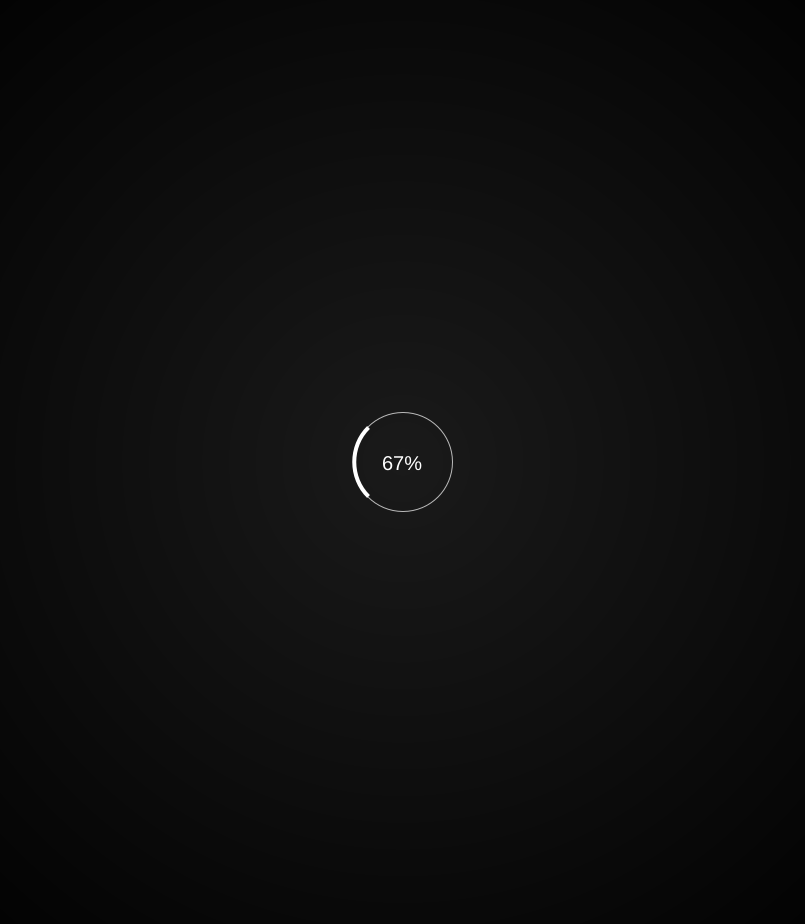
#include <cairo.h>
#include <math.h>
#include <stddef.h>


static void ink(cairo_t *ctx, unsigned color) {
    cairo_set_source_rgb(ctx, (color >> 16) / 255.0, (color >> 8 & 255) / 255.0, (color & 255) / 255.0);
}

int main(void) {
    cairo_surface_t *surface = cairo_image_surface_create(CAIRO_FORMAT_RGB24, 805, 924);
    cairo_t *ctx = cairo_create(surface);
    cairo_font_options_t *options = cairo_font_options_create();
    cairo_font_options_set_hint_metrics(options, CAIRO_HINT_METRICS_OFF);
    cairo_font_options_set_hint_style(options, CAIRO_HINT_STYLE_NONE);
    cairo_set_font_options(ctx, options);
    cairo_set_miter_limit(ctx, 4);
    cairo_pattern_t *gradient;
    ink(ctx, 0xFFFFFF);
    cairo_paint(ctx);
    gradient = cairo_pattern_create_radial(403, 462, 0, 403, 462, 613);
    cairo_pattern_add_color_stop_rgba(gradient, 0, 0.102, 0.102, 0.102, 1);
    cairo_pattern_add_color_stop_rgba(gradient, 1, 0.012, 0.012, 0.012, 1);
    cairo_set_source(ctx, gradient);
    cairo_pattern_destroy(gradient);
    cairo_rectangle(ctx, 0, 0, 805, 924);
    cairo_fill(ctx);
    cairo_arc(ctx, 403, 462, 49.5, 0, 2 * M_PI);
    ink(ctx, 0xBABABA);
    cairo_set_line_width(ctx, 1);
    cairo_stroke(ctx);
    cairo_new_path(ctx);
    cairo_move_to(ctx, 368.5, 496.5);
    cairo_curve_to(ctx, 349.5, 478, 349.5, 446, 368.5, 427.5);
    ink(ctx, 0xFFFFFF);
    cairo_set_line_width(ctx, 4);
    cairo_stroke(ctx);
    cairo_select_font_face(ctx, "Liberation Sans", CAIRO_FONT_SLANT_NORMAL, CAIRO_FONT_WEIGHT_NORMAL);
    cairo_set_font_size(ctx, 20);
    cairo_move_to(ctx, 382, 470);
    cairo_show_text(ctx, "67%");
    cairo_surface_write_to_png(surface, "image.png");
    cairo_font_options_destroy(options);
    cairo_destroy(ctx);
    cairo_surface_destroy(surface);
    return 0;
}
